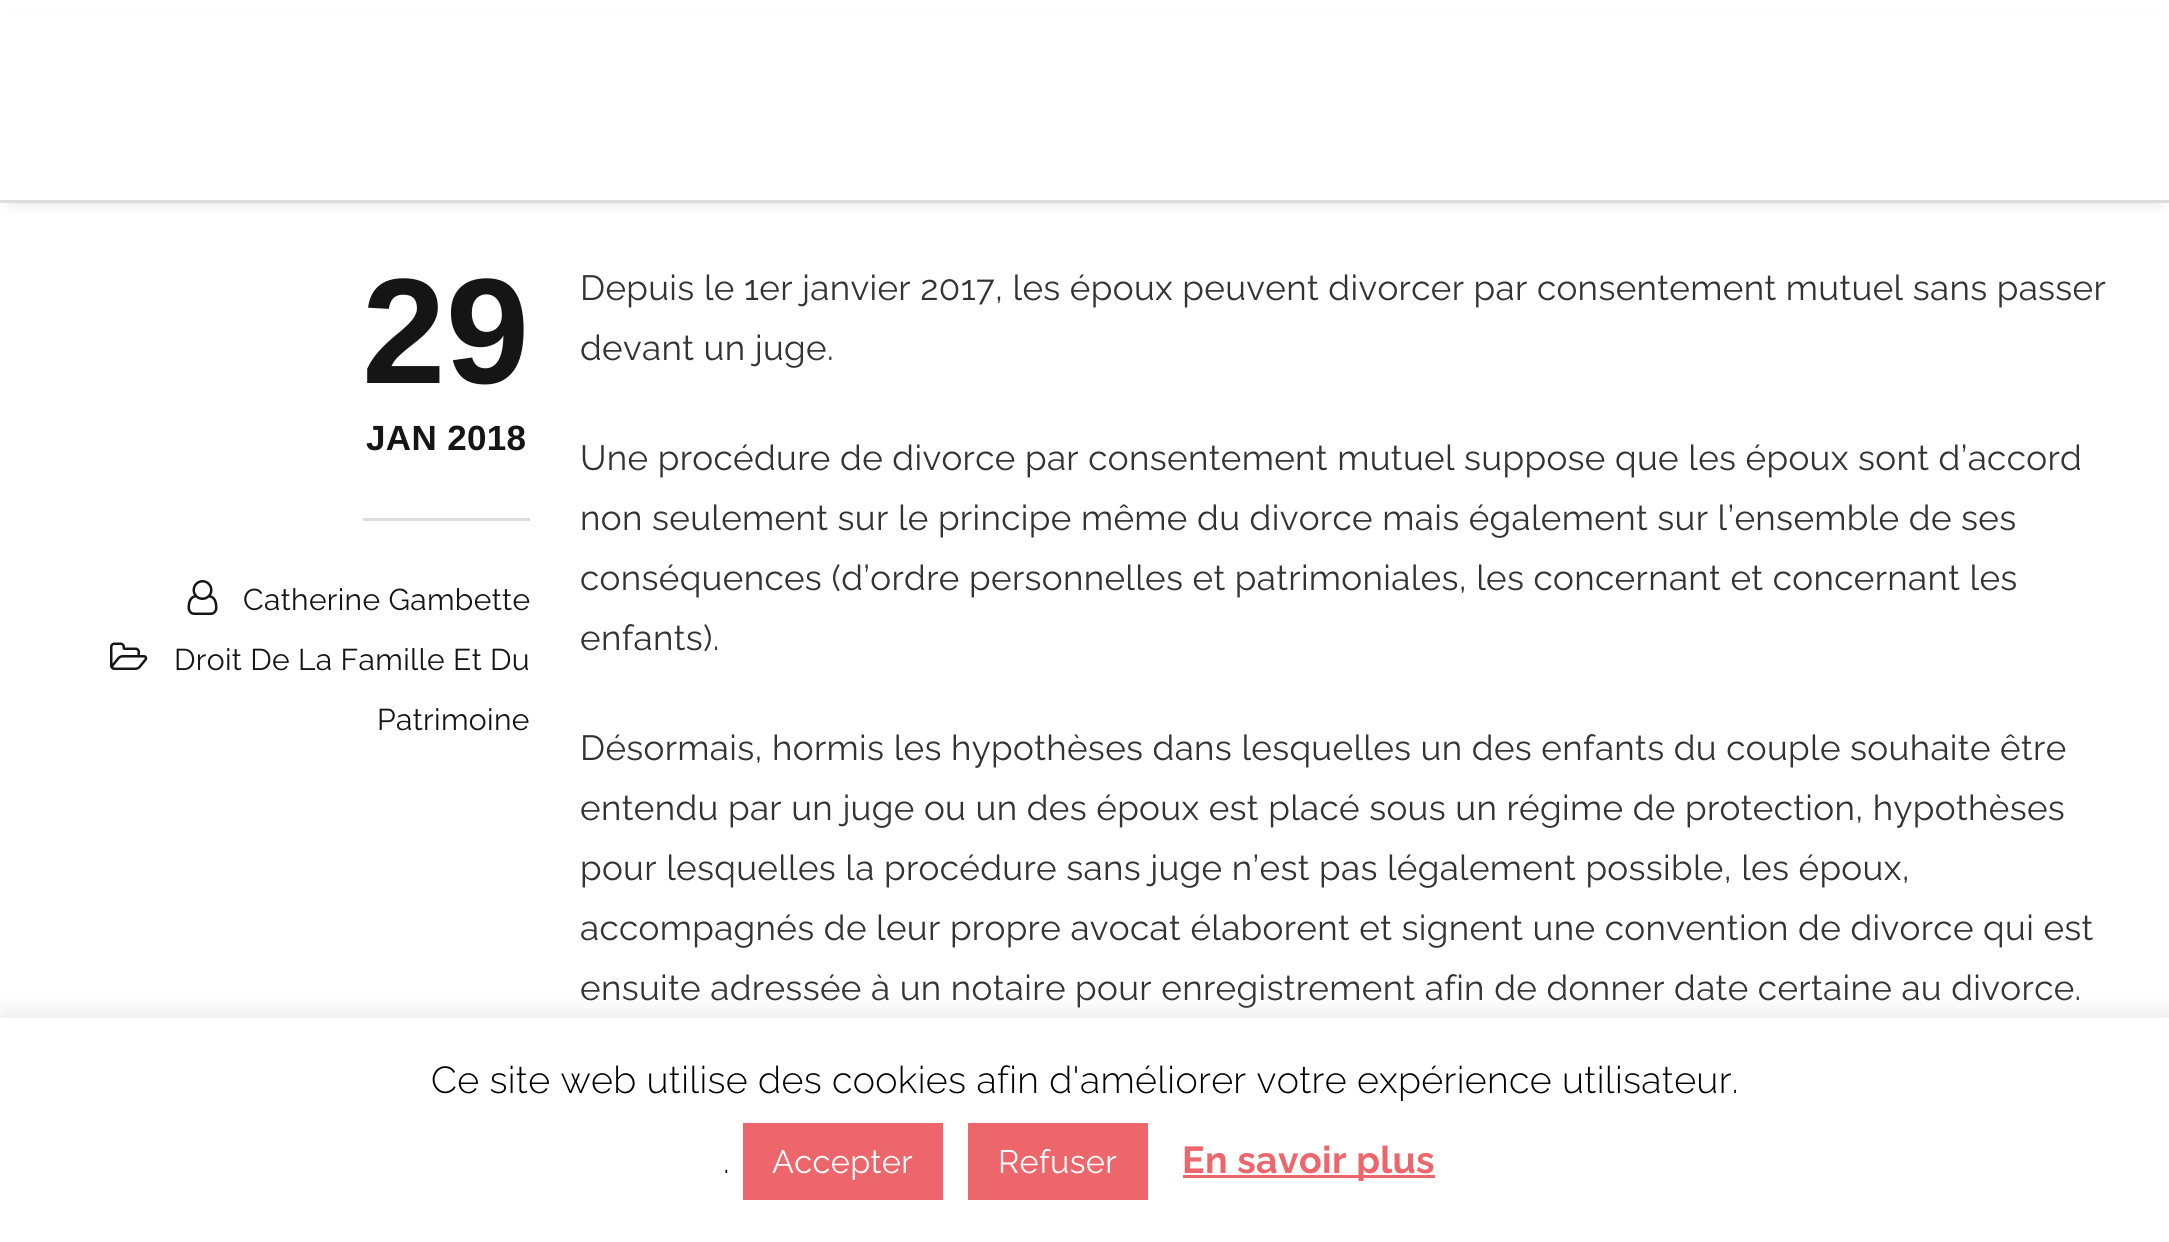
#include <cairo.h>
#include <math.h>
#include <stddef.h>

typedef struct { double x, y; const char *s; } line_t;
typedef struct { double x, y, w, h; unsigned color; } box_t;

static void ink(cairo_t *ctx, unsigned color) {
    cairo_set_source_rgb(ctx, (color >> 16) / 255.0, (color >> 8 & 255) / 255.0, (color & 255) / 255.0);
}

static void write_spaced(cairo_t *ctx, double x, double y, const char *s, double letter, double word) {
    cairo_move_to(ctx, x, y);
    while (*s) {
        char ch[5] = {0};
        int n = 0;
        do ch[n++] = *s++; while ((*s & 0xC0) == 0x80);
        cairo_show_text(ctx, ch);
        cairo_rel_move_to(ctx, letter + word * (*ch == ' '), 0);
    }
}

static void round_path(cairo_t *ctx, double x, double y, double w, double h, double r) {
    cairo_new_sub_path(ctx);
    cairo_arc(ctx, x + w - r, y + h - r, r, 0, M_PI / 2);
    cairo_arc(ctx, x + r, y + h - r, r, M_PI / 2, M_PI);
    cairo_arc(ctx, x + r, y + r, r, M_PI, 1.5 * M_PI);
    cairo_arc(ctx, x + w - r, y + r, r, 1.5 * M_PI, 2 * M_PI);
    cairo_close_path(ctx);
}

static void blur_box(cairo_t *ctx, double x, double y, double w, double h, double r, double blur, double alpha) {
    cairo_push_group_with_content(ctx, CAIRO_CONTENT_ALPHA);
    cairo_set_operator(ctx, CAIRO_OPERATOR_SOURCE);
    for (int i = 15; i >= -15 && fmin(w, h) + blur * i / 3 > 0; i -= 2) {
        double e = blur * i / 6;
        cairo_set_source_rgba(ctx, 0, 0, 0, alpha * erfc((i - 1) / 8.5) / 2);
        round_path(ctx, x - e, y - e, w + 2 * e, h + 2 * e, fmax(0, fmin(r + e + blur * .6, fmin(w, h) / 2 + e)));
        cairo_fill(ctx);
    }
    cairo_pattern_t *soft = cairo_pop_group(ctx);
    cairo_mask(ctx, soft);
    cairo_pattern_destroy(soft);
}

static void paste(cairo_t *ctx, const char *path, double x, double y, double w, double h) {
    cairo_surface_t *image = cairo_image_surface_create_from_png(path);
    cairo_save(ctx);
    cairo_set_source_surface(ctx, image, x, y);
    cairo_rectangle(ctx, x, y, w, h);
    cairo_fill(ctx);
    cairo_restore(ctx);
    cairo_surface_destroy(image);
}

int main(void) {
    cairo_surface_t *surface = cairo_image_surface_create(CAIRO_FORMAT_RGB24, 2169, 1242);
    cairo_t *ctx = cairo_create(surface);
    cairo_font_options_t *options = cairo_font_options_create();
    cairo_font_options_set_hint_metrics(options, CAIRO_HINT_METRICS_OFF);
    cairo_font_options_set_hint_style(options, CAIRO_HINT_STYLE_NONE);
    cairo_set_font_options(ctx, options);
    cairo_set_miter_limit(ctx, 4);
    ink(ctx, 0xFFFFFF);
    cairo_paint(ctx);
    ink(ctx, 0x000000);
    blur_box(ctx, 10, 23, 2150, 182, 0, 6, 0.1);
    {
        static const box_t items[] = {
            {2, 15, 2166, 185, 0xFFFFFF},
            {0, 200, 2169, 3, 0xDDDDDD},
            {363, 518, 167, 3, 0xDDDDDD},
        };
        for (size_t i = 0; i < sizeof items / sizeof *items; i++) {
            ink(ctx, items[i].color);
            cairo_rectangle(ctx, items[i].x, items[i].y, items[i].w, items[i].h);
            cairo_fill(ctx);
        }
    }
    cairo_select_font_face(ctx, "Liberation Sans", CAIRO_FONT_SLANT_NORMAL, CAIRO_FONT_WEIGHT_BOLD);
    cairo_set_font_size(ctx, 150);
    ink(ctx, 0x151515);
    write_spaced(ctx, 362, 383, "29", 0.35, 0);
    cairo_set_font_size(ctx, 35);
    write_spaced(ctx, 366, 450, "JAN 2018", 0.35, 0);
    paste(ctx, "media/1.png", 187, 580, 31, 35);
    cairo_select_font_face(ctx, "Raleway Thin", CAIRO_FONT_SLANT_NORMAL, CAIRO_FONT_WEIGHT_NORMAL);
    cairo_set_font_size(ctx, 30);
    write_spaced(ctx, 243, 610, "Catherine Gambette", 0.35, 0);
    paste(ctx, "media/2.png", 110, 642, 38, 28);
    write_spaced(ctx, 174, 670, "Droit De La Famille Et Du", 0.35, 0);
    write_spaced(ctx, 377, 730, "Patrimoine", 0.35, 0);
    cairo_set_font_size(ctx, 35);
    ink(ctx, 0x333333);
    {
        static const line_t items[] = {
            {580, 300, "Depuis le 1er janvier 2017, les époux peuvent divorcer par consentement mutuel sans passer"},
            {580, 360, "devant un juge."},
            {580, 470, "Une procédure de divorce par consentement mutuel suppose que les époux sont d’accord"},
            {580, 530, "non seulement sur le principe même du divorce mais également sur l’ensemble de ses"},
            {580, 590, "conséquences (d’ordre personnelles et patrimoniales, les concernant et concernant les"},
            {580, 650, "enfants)."},
            {580, 760, "Désormais, hormis les hypothèses dans lesquelles un des enfants du couple souhaite être"},
            {580, 820, "entendu par un juge ou un des époux est placé sous un régime de protection, hypothèses"},
            {580, 880, "pour lesquelles la procédure sans juge n’est pas légalement possible, les époux,"},
            {580, 940, "accompagnés de leur propre avocat élaborent et signent une convention de divorce qui est"},
            {580, 1000, "ensuite adressée à un notaire pour enregistrement afin de donner date certaine au divorce."},
        };
        for (size_t i = 0; i < sizeof items / sizeof *items; i++) {
            write_spaced(ctx, items[i].x, items[i].y, items[i].s, 0.35, 0);
        }
    }
    ink(ctx, 0xACABAB);
    blur_box(ctx, 0, 1015, 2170, 225, 0, 12.5, 0.3);
    ink(ctx, 0xFFFFFF);
    cairo_rectangle(ctx, 0, 1018, 2169, 224);
    cairo_fill(ctx);
    cairo_select_font_face(ctx, "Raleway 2 Thin", CAIRO_FONT_SLANT_NORMAL, CAIRO_FONT_WEIGHT_NORMAL);
    cairo_set_font_size(ctx, 37.5);
    ink(ctx, 0x000000);
    write_spaced(ctx, 431, 1093, "Ce site web utilise des cookies afin d'améliorer votre expérience utilisateur.", 0.35, 0);
    write_spaced(ctx, 723, 1173, ".", 0.35, 0);
    ink(ctx, 0xEC666B);
    cairo_rectangle(ctx, 743, 1123, 200, 77);
    cairo_fill(ctx);
    cairo_select_font_face(ctx, "Raleway Thin", CAIRO_FONT_SLANT_NORMAL, CAIRO_FONT_WEIGHT_NORMAL);
    cairo_set_font_size(ctx, 32.5);
    ink(ctx, 0xFFFFFF);
    write_spaced(ctx, 772, 1173, "Accepter", 0.35, 0);
    ink(ctx, 0xEC666B);
    cairo_rectangle(ctx, 968, 1123, 180, 77);
    cairo_fill(ctx);
    ink(ctx, 0xFFFFFF);
    write_spaced(ctx, 998, 1173, "Refuser", 0.35, 0);
    ink(ctx, 0xEC666B);
    cairo_rectangle(ctx, 1183, 1175, 252, 3);
    cairo_fill(ctx);
    cairo_select_font_face(ctx, "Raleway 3 Thin", CAIRO_FONT_SLANT_NORMAL, CAIRO_FONT_WEIGHT_NORMAL);
    cairo_set_font_size(ctx, 37.5);
    write_spaced(ctx, 1182, 1173, "En savoir plus", 0.35, 0);
    cairo_surface_write_to_png(surface, "image.png");
    cairo_font_options_destroy(options);
    cairo_destroy(ctx);
    cairo_surface_destroy(surface);
    return 0;
}
